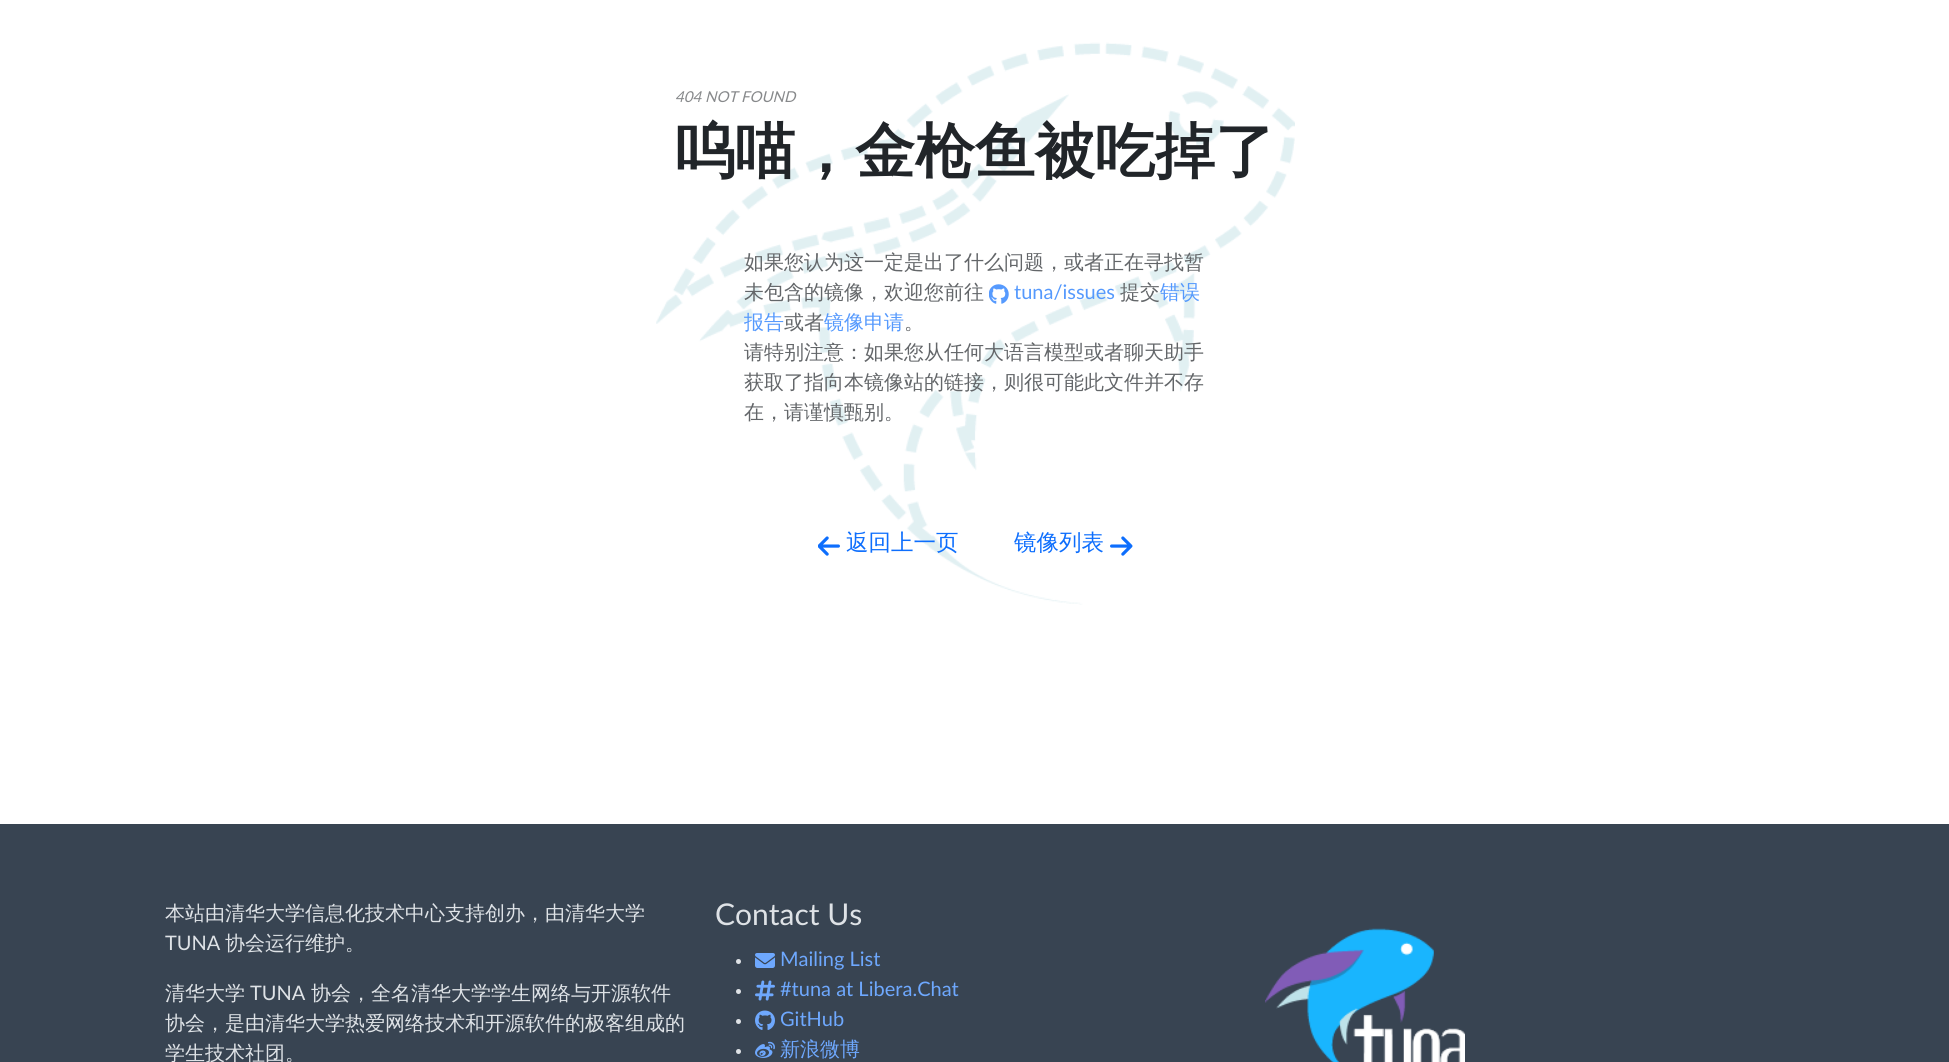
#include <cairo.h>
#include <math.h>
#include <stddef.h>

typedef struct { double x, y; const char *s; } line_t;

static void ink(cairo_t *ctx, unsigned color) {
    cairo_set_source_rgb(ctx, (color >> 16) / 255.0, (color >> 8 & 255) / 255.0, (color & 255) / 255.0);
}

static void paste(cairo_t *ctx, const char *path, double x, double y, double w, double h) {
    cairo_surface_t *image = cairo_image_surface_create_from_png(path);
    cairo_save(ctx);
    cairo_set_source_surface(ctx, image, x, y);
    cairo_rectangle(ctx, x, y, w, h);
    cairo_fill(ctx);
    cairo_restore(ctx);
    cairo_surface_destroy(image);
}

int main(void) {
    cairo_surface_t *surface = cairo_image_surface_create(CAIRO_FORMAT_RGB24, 1949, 1062);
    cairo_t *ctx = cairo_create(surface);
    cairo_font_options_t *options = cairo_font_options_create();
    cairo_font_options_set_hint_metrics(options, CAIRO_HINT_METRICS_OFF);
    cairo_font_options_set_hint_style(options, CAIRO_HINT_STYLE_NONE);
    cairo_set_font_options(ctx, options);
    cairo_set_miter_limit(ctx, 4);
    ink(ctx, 0xFFFFFF);
    cairo_paint(ctx);
    paste(ctx, "media/1.png", 656, 42, 639, 563);
    cairo_select_font_face(ctx, "Lato", CAIRO_FONT_SLANT_ITALIC, CAIRO_FONT_WEIGHT_NORMAL);
    cairo_set_font_size(ctx, 15);
    ink(ctx, 0x87898B);
    cairo_move_to(ctx, 675, 102);
    cairo_show_text(ctx, "404 NOT FOUND");
    cairo_select_font_face(ctx, "WenQuanYi Zen Hei", CAIRO_FONT_SLANT_NORMAL, CAIRO_FONT_WEIGHT_BOLD);
    cairo_set_font_size(ctx, 60);
    ink(ctx, 0x212529);
    cairo_move_to(ctx, 675, 172);
    cairo_show_text(ctx, "呜喵，金枪鱼被吃掉了");
    cairo_select_font_face(ctx, "WenQuanYi Zen Hei Medium", CAIRO_FONT_SLANT_NORMAL, CAIRO_FONT_WEIGHT_NORMAL);
    cairo_set_font_size(ctx, 20);
    ink(ctx, 0x636669);
    cairo_move_to(ctx, 744, 269);
    cairo_show_text(ctx, "如果您认为这一定是出了什么问题，或者正在寻找暂");
    cairo_move_to(ctx, 744, 299);
    cairo_show_text(ctx, "未包含的镜像，欢迎您前往");
    paste(ctx, "media/2.png", 989, 284, 20, 20);
    cairo_select_font_face(ctx, "Lato", CAIRO_FONT_SLANT_NORMAL, CAIRO_FONT_WEIGHT_NORMAL);
    ink(ctx, 0x5599FD);
    cairo_move_to(ctx, 1014, 299);
    cairo_show_text(ctx, "tuna/issues");
    cairo_select_font_face(ctx, "WenQuanYi Zen Hei Medium", CAIRO_FONT_SLANT_NORMAL, CAIRO_FONT_WEIGHT_NORMAL);
    ink(ctx, 0x636669);
    cairo_move_to(ctx, 1120, 299);
    cairo_show_text(ctx, "提交");
    ink(ctx, 0x5599FD);
    cairo_move_to(ctx, 1160, 299);
    cairo_show_text(ctx, "错误");
    cairo_move_to(ctx, 744, 329);
    cairo_show_text(ctx, "报告");
    ink(ctx, 0x636669);
    cairo_move_to(ctx, 784, 329);
    cairo_show_text(ctx, "或者");
    ink(ctx, 0x5599FD);
    cairo_move_to(ctx, 824, 329);
    cairo_show_text(ctx, "镜像申请");
    ink(ctx, 0x636669);
    {
        static const line_t items[] = {
            {904, 329, "。"},
            {744, 359, "请特别注意：如果您从任何大语言模型或者聊天助手"},
            {744, 389, "获取了指向本镜像站的链接，则很可能此文件并不存"},
            {744, 419, "在，请谨慎甄别。"},
        };
        for (size_t i = 0; i < sizeof items / sizeof *items; i++) {
            cairo_move_to(ctx, items[i].x, items[i].y);
            cairo_show_text(ctx, items[i].s);
        }
    }
    paste(ctx, "media/3.png", 818, 536, 22, 20);
    cairo_set_font_size(ctx, 22.5);
    ink(ctx, 0x0D6EFD);
    cairo_move_to(ctx, 846, 550);
    cairo_show_text(ctx, "返回上一页");
    cairo_move_to(ctx, 1014, 550);
    cairo_show_text(ctx, "镜像列表");
    paste(ctx, "media/4.png", 1110, 536, 23, 20);
    ink(ctx, 0x384452);
    cairo_rectangle(ctx, 0, 824, 1949, 238);
    cairo_fill(ctx);
    cairo_set_font_size(ctx, 20);
    ink(ctx, 0xDEE2E6);
    cairo_move_to(ctx, 165, 920);
    cairo_show_text(ctx, "本站由清华大学信息化技术中心支持创办，由清华大学");
    cairo_select_font_face(ctx, "Lato", CAIRO_FONT_SLANT_NORMAL, CAIRO_FONT_WEIGHT_NORMAL);
    cairo_move_to(ctx, 165, 950);
    cairo_show_text(ctx, "TUNA");
    cairo_select_font_face(ctx, "WenQuanYi Zen Hei Medium", CAIRO_FONT_SLANT_NORMAL, CAIRO_FONT_WEIGHT_NORMAL);
    cairo_move_to(ctx, 225, 950);
    cairo_show_text(ctx, "协会运行维护。");
    cairo_move_to(ctx, 165, 1000);
    cairo_show_text(ctx, "清华大学");
    cairo_select_font_face(ctx, "Lato", CAIRO_FONT_SLANT_NORMAL, CAIRO_FONT_WEIGHT_NORMAL);
    cairo_move_to(ctx, 250, 1000);
    cairo_show_text(ctx, "TUNA");
    cairo_select_font_face(ctx, "WenQuanYi Zen Hei Medium", CAIRO_FONT_SLANT_NORMAL, CAIRO_FONT_WEIGHT_NORMAL);
    {
        static const line_t items[] = {
            {311, 1000, "协会，全名清华大学学生网络与开源软件"},
            {165, 1030, "协会，是由清华大学热爱网络技术和开源软件的极客组成的"},
            {165, 1060, "学生技术社团。"},
        };
        for (size_t i = 0; i < sizeof items / sizeof *items; i++) {
            cairo_move_to(ctx, items[i].x, items[i].y);
            cairo_show_text(ctx, items[i].s);
        }
    }
    cairo_select_font_face(ctx, "Lato", CAIRO_FONT_SLANT_NORMAL, CAIRO_FONT_WEIGHT_NORMAL);
    cairo_set_font_size(ctx, 30);
    cairo_move_to(ctx, 715, 925);
    cairo_show_text(ctx, "Contact Us");
    cairo_new_path(ctx);
    cairo_arc(ctx, 738.5, 961.5, 2.5, 0, 2 * M_PI);
    cairo_fill(ctx);
    paste(ctx, "media/5.png", 755, 953, 20, 15);
    cairo_set_font_size(ctx, 20);
    ink(ctx, 0x6EA8FE);
    cairo_move_to(ctx, 780, 966);
    cairo_show_text(ctx, "Mailing List");
    ink(ctx, 0xDEE2E6);
    cairo_new_path(ctx);
    cairo_arc(ctx, 738.5, 991.5, 2.5, 0, 2 * M_PI);
    cairo_fill(ctx);
    paste(ctx, "media/6.png", 755, 980, 20, 21);
    ink(ctx, 0x6EA8FE);
    cairo_move_to(ctx, 780, 996);
    cairo_show_text(ctx, "#tuna at Libera.Chat");
    ink(ctx, 0xDEE2E6);
    cairo_new_path(ctx);
    cairo_arc(ctx, 738.5, 1021.5, 2.5, 0, 2 * M_PI);
    cairo_fill(ctx);
    paste(ctx, "media/7.png", 755, 1010, 20, 20);
    ink(ctx, 0x6EA8FE);
    cairo_move_to(ctx, 780, 1026);
    cairo_show_text(ctx, "GitHub");
    ink(ctx, 0xDEE2E6);
    cairo_new_path(ctx);
    cairo_arc(ctx, 738.5, 1051.5, 2.5, 0, 2 * M_PI);
    cairo_fill(ctx);
    paste(ctx, "media/8.png", 755, 1041, 20, 17);
    cairo_select_font_face(ctx, "WenQuanYi Zen Hei Medium", CAIRO_FONT_SLANT_NORMAL, CAIRO_FONT_WEIGHT_NORMAL);
    ink(ctx, 0x6EA8FE);
    cairo_move_to(ctx, 780, 1056);
    cairo_show_text(ctx, "新浪微博");
    paste(ctx, "media/9.png", 1265, 928, 200, 134);
    cairo_surface_write_to_png(surface, "image.png");
    cairo_font_options_destroy(options);
    cairo_destroy(ctx);
    cairo_surface_destroy(surface);
    return 0;
}
